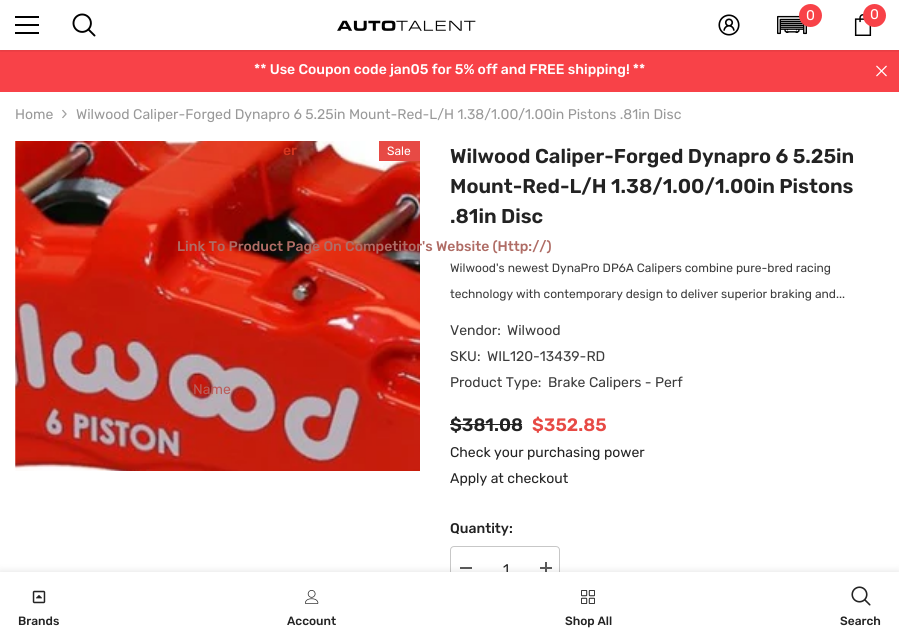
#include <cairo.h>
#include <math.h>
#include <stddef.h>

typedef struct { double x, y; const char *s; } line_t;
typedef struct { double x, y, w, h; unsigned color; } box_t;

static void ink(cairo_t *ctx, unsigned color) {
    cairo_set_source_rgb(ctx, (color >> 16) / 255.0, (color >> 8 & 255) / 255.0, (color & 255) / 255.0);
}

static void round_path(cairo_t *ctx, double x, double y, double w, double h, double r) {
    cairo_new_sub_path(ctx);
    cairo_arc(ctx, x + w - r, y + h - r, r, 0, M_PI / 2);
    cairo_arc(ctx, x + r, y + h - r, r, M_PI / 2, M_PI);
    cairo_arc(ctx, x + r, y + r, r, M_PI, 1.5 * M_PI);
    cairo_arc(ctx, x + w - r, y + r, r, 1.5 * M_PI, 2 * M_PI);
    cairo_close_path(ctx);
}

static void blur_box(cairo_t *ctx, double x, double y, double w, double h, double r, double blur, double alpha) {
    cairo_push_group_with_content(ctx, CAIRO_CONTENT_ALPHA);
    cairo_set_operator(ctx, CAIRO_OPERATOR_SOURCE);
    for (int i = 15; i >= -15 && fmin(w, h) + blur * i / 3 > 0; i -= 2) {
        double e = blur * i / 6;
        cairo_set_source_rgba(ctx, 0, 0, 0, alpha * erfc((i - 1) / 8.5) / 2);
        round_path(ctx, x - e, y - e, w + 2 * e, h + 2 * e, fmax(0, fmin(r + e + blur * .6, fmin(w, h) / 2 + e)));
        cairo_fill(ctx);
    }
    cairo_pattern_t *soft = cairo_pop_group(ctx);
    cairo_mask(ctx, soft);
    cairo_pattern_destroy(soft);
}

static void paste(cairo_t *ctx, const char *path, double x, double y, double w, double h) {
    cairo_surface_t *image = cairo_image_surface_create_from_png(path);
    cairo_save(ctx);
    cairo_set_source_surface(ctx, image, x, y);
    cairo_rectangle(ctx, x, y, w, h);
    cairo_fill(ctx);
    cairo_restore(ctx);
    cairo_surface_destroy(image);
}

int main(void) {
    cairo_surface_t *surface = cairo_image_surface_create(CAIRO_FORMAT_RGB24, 899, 638);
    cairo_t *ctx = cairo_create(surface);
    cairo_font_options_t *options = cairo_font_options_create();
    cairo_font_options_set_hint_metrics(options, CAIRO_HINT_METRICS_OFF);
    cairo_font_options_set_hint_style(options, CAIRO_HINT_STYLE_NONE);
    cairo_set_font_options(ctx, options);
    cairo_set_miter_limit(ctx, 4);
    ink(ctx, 0xFFFFFF);
    cairo_paint(ctx);
    ink(ctx, 0xF84248);
    cairo_rectangle(ctx, 0, 50, 899, 42);
    cairo_fill(ctx);
    cairo_save(ctx);
    cairo_rectangle(ctx, 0, 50, 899, 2);
    cairo_clip(ctx);
    ink(ctx, 0x000000);
    blur_box(ctx, 0, 1, 899, 50, 0, 1.5, 0.1);
    cairo_restore(ctx);
    {
        static const box_t items[] = {
            {15, 24, 24, 2, 0x000000},
            {15, 16, 24, 2, 0x000000},
            {15, 32, 24, 2, 0x000000},
        };
        for (size_t i = 0; i < sizeof items / sizeof *items; i++) {
            ink(ctx, items[i].color);
            cairo_rectangle(ctx, items[i].x, items[i].y, items[i].w, items[i].h);
            cairo_fill(ctx);
        }
    }
    paste(ctx, "media/1.png", 72, 13, 24, 24);
    paste(ctx, "media/2.png", 337, 20, 139, 11);
    paste(ctx, "media/3.png", 718, 14, 22, 22);
    paste(ctx, "media/4.png", 777, 15, 30, 20);
    ink(ctx, 0xF84248);
    cairo_arc(ctx, 810.5, 15.5, 11.5, 0, 2 * M_PI);
    cairo_fill(ctx);
    cairo_select_font_face(ctx, "Rubik", CAIRO_FONT_SLANT_NORMAL, CAIRO_FONT_WEIGHT_NORMAL);
    cairo_set_font_size(ctx, 14);
    ink(ctx, 0xFFFFFF);
    cairo_move_to(ctx, 806, 20);
    cairo_show_text(ctx, "0");
    paste(ctx, "media/5.png", 854, 14, 18, 22);
    ink(ctx, 0xF84248);
    cairo_arc(ctx, 874.5, 15.5, 11.5, 0, 2 * M_PI);
    cairo_fill(ctx);
    ink(ctx, 0xFFFFFF);
    cairo_move_to(ctx, 870, 19);
    cairo_show_text(ctx, "0");
    cairo_select_font_face(ctx, "Rubik Medium", CAIRO_FONT_SLANT_NORMAL, CAIRO_FONT_WEIGHT_NORMAL);
    cairo_move_to(ctx, 254, 74);
    cairo_show_text(ctx, "** Use Coupon code jan05 for 5% off and FREE shipping! **");
    paste(ctx, "media/6.png", 876, 65, 11, 12);
    cairo_select_font_face(ctx, "Rubik", CAIRO_FONT_SLANT_NORMAL, CAIRO_FONT_WEIGHT_NORMAL);
    ink(ctx, 0x999999);
    cairo_move_to(ctx, 15, 119);
    cairo_show_text(ctx, "Home");
    paste(ctx, "media/7.png", 62, 109, 5, 10);
    cairo_move_to(ctx, 76, 119);
    cairo_show_text(ctx, "Wilwood Caliper-Forged Dynapro 6 5.25in Mount-Red-L/H 1.38/1.00/1.00in Pistons .81in Disc");
    paste(ctx, "media/8.png", 15, 141, 405, 330);
    paste(ctx, "media/9.png", 15, 141, 1, 327);
    ink(ctx, 0xE74A45);
    cairo_rectangle(ctx, 379, 141, 41, 20);
    cairo_fill(ctx);
    cairo_set_font_size(ctx, 12);
    ink(ctx, 0xFFFFFF);
    cairo_move_to(ctx, 387, 155);
    cairo_show_text(ctx, "Sale");
    cairo_select_font_face(ctx, "Rubik SemiBold", CAIRO_FONT_SLANT_NORMAL, CAIRO_FONT_WEIGHT_NORMAL);
    cairo_set_font_size(ctx, 20);
    ink(ctx, 0x232323);
    {
        static const line_t items[] = {
            {450, 163, "Wilwood Caliper-Forged Dynapro 6 5.25in"},
            {450, 193, "Mount-Red-L/H 1.38/1.00/1.00in Pistons"},
            {450, 223, ".81in Disc"},
        };
        for (size_t i = 0; i < sizeof items / sizeof *items; i++) {
            cairo_move_to(ctx, items[i].x, items[i].y);
            cairo_show_text(ctx, items[i].s);
        }
    }
    cairo_select_font_face(ctx, "Rubik", CAIRO_FONT_SLANT_NORMAL, CAIRO_FONT_WEIGHT_NORMAL);
    cairo_set_font_size(ctx, 12);
    ink(ctx, 0x3C3C3C);
    cairo_move_to(ctx, 450, 272);
    cairo_show_text(ctx, "Wilwood's newest DynaPro DP6A Calipers combine pure-bred racing");
    cairo_move_to(ctx, 450, 298);
    cairo_show_text(ctx, "technology with contemporary design to deliver superior braking and...");
    cairo_set_font_size(ctx, 14);
    {
        static const line_t items[] = {
            {450, 335, "Vendor:"},
            {507, 335, "Wilwood"},
            {450, 361, "SKU:"},
            {487, 361, "WIL120-13439-RD"},
            {450, 387, "Product Type:"},
            {548, 387, "Brake Calipers - Perf"},
        };
        for (size_t i = 0; i < sizeof items / sizeof *items; i++) {
            cairo_move_to(ctx, items[i].x, items[i].y);
            cairo_show_text(ctx, items[i].s);
        }
    }
    cairo_select_font_face(ctx, "Rubik SemiBold", CAIRO_FONT_SLANT_NORMAL, CAIRO_FONT_WEIGHT_NORMAL);
    cairo_set_font_size(ctx, 18);
    ink(ctx, 0x232323);
    cairo_move_to(ctx, 450, 431);
    cairo_show_text(ctx, "$381.08");
    cairo_rectangle(ctx, 450, 424, 72, 1);
    cairo_fill(ctx);
    ink(ctx, 0xE74A45);
    cairo_move_to(ctx, 532, 431);
    cairo_show_text(ctx, "$352.85");
    cairo_select_font_face(ctx, "Rubik", CAIRO_FONT_SLANT_NORMAL, CAIRO_FONT_WEIGHT_NORMAL);
    cairo_set_font_size(ctx, 14);
    ink(ctx, 0x232323);
    cairo_move_to(ctx, 450, 457);
    cairo_show_text(ctx, "Check your purchasing power");
    cairo_move_to(ctx, 450, 483);
    cairo_show_text(ctx, "Apply at checkout");
    cairo_select_font_face(ctx, "Rubik Medium", CAIRO_FONT_SLANT_NORMAL, CAIRO_FONT_WEIGHT_NORMAL);
    cairo_move_to(ctx, 450, 533);
    cairo_show_text(ctx, "Quantity:");
    round_path(ctx, 450.5, 546.5, 109, 46, 3.5);
    ink(ctx, 0xC7C7C7);
    cairo_set_line_width(ctx, 1);
    cairo_stroke(ctx);
    ink(ctx, 0x5A5A5A);
    cairo_rectangle(ctx, 460, 567, 12, 2);
    cairo_fill(ctx);
    cairo_select_font_face(ctx, "Rubik", CAIRO_FONT_SLANT_NORMAL, CAIRO_FONT_WEIGHT_NORMAL);
    ink(ctx, 0x232323);
    cairo_move_to(ctx, 503, 574);
    cairo_show_text(ctx, "1");
    ink(ctx, 0x5A5A5A);
    cairo_rectangle(ctx, 540, 567, 12, 2);
    cairo_fill(ctx);
    cairo_rectangle(ctx, 545, 562, 2, 12);
    cairo_fill(ctx);
    cairo_select_font_face(ctx, "Rubik Medium", CAIRO_FONT_SLANT_NORMAL, CAIRO_FONT_WEIGHT_NORMAL);
    ink(ctx, 0xD6361F);
    cairo_move_to(ctx, 283, 155);
    cairo_show_text(ctx, "er");
    ink(ctx, 0xAF6C65);
    cairo_move_to(ctx, 177, 251);
    cairo_show_text(ctx, "Link To Product Page On Competitor's Website (Http://)");
    cairo_select_font_face(ctx, "Rubik", CAIRO_FONT_SLANT_NORMAL, CAIRO_FONT_WEIGHT_NORMAL);
    ink(ctx, 0xBA5D5B);
    cairo_move_to(ctx, 193, 394);
    cairo_show_text(ctx, "Name");
    ink(ctx, 0x000000);
    blur_box(ctx, 0, 572, 899, 66, 0, 4.5, 0.12);
    ink(ctx, 0xFFFFFF);
    cairo_rectangle(ctx, 0, 572, 899, 66);
    cairo_fill(ctx);
    paste(ctx, "media/10.png", 32, 590, 14, 14);
    cairo_select_font_face(ctx, "Rubik Medium", CAIRO_FONT_SLANT_NORMAL, CAIRO_FONT_WEIGHT_NORMAL);
    cairo_set_font_size(ctx, 12);
    ink(ctx, 0x232323);
    cairo_move_to(ctx, 18, 625);
    cairo_show_text(ctx, "Brands");
    paste(ctx, "media/11.png", 305, 590, 14, 14);
    cairo_move_to(ctx, 287, 625);
    cairo_show_text(ctx, "Account");
    paste(ctx, "media/12.png", 581, 590, 14, 14);
    cairo_move_to(ctx, 565, 625);
    cairo_show_text(ctx, "Shop All");
    paste(ctx, "media/13.png", 851, 586, 20, 20);
    cairo_move_to(ctx, 840, 625);
    cairo_show_text(ctx, "Search");
    cairo_surface_write_to_png(surface, "image.png");
    cairo_font_options_destroy(options);
    cairo_destroy(ctx);
    cairo_surface_destroy(surface);
    return 0;
}
